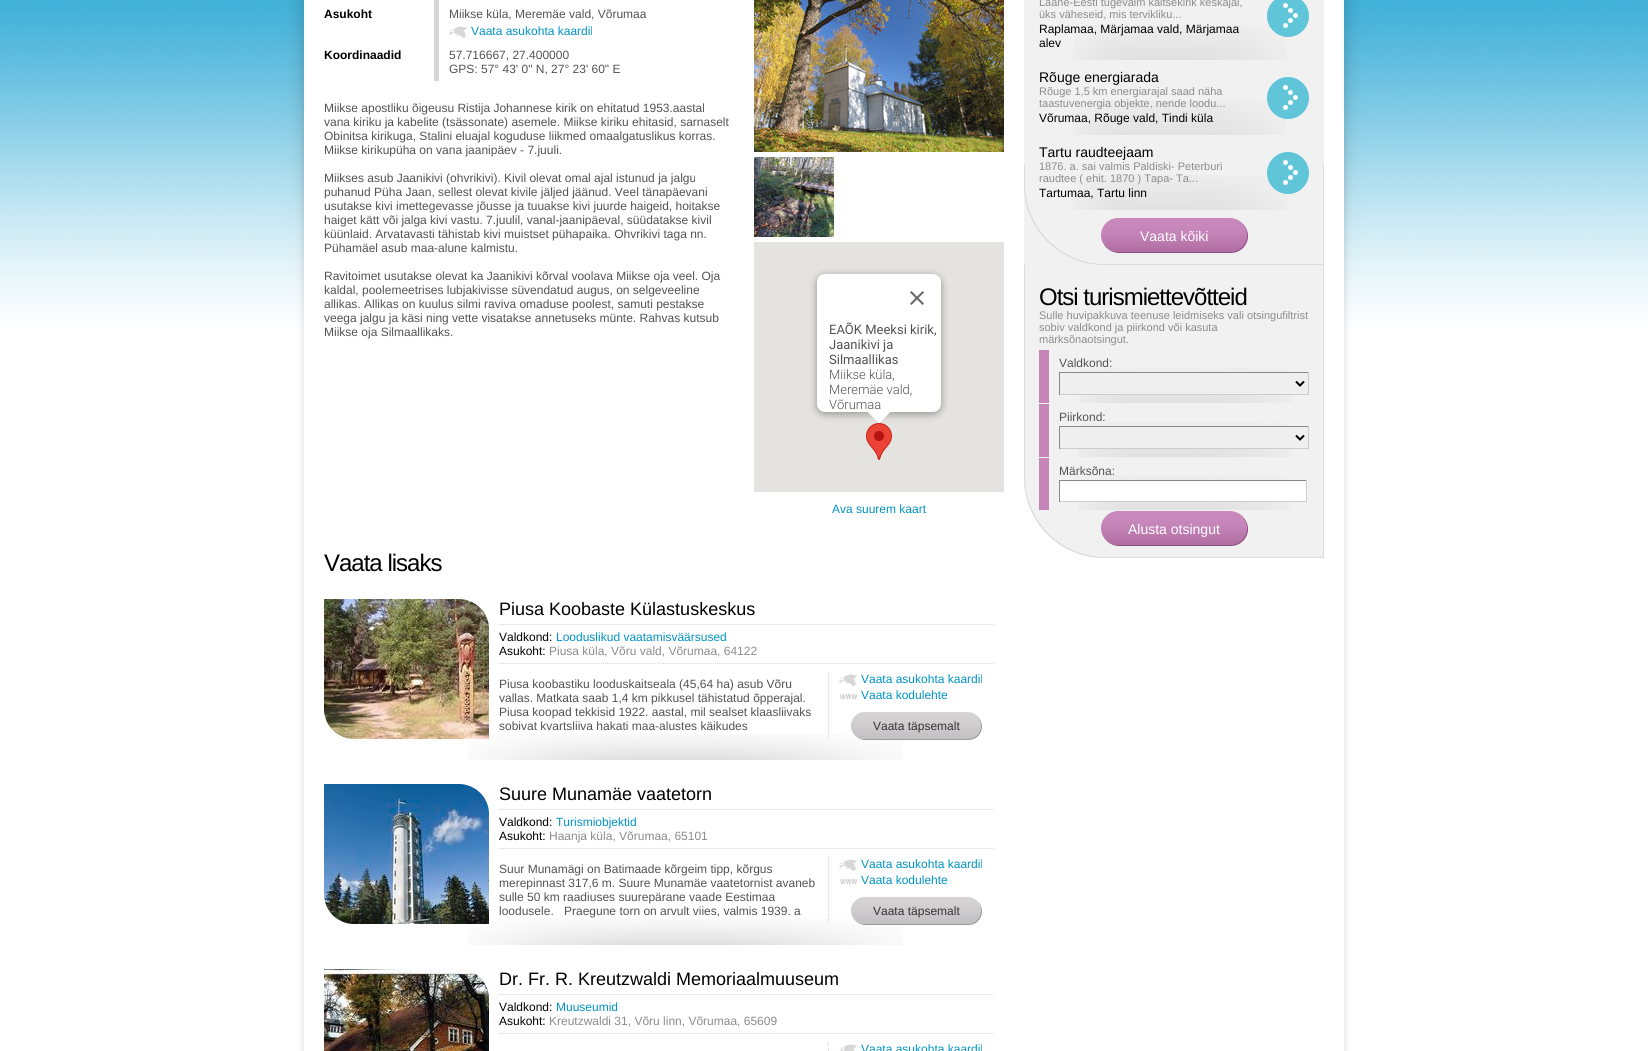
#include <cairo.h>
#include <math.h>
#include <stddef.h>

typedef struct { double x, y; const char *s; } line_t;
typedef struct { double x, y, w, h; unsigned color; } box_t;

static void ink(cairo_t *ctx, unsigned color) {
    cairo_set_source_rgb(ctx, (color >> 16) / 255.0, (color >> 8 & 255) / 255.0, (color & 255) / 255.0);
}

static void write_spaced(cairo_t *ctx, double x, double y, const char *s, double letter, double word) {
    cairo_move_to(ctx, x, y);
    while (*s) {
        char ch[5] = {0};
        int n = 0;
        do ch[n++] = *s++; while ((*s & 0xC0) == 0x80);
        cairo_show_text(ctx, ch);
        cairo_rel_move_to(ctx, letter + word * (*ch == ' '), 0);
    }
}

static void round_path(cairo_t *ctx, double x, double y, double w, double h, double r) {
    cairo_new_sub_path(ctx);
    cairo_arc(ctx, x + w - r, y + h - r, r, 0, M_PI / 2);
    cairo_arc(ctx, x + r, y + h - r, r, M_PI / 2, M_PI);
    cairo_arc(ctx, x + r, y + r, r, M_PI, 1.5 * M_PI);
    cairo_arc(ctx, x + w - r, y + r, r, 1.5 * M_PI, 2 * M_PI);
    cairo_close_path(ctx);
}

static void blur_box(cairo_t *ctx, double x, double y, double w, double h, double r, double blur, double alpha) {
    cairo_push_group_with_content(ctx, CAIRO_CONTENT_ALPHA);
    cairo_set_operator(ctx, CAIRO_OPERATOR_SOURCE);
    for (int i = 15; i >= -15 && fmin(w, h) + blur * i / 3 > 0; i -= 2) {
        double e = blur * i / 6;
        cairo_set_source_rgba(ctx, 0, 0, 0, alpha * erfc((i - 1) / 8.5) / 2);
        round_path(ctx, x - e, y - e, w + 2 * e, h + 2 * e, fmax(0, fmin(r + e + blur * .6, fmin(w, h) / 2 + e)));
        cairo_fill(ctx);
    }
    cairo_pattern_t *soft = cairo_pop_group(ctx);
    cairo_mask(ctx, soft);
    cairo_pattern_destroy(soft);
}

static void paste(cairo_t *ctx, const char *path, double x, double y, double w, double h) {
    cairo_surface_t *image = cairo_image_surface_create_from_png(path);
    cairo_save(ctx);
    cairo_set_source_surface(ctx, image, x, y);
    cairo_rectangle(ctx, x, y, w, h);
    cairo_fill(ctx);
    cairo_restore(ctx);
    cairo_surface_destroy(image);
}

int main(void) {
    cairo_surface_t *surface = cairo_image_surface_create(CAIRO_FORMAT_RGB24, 1648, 1051);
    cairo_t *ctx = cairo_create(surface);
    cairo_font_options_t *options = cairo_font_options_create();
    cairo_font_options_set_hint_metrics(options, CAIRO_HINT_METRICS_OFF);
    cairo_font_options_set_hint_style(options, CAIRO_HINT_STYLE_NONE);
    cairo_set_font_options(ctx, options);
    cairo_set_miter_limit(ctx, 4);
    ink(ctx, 0xFFFFFF);
    cairo_paint(ctx);
    paste(ctx, "media/1.png", 0, 0, 1648, 1051);
    ink(ctx, 0xD7D7D7);
    cairo_rectangle(ctx, 434, 0, 5, 81);
    cairo_fill(ctx);
    cairo_select_font_face(ctx, "Liberation Sans", CAIRO_FONT_SLANT_NORMAL, CAIRO_FONT_WEIGHT_BOLD);
    cairo_set_font_size(ctx, 12);
    ink(ctx, 0x000000);
    cairo_move_to(ctx, 324, 18);
    cairo_show_text(ctx, "Asukoht");
    cairo_select_font_face(ctx, "Liberation Sans", CAIRO_FONT_SLANT_NORMAL, CAIRO_FONT_WEIGHT_NORMAL);
    ink(ctx, 0x535353);
    cairo_move_to(ctx, 449, 18);
    cairo_show_text(ctx, "Miikse küla, Meremäe vald, Võrumaa");
    paste(ctx, "media/2.png", 449, 26, 18, 12);
    ink(ctx, 0x0093C3);
    cairo_move_to(ctx, 471, 35);
    cairo_show_text(ctx, "Vaata asukohta kaardil");
    cairo_select_font_face(ctx, "Liberation Sans", CAIRO_FONT_SLANT_NORMAL, CAIRO_FONT_WEIGHT_BOLD);
    ink(ctx, 0x000000);
    cairo_move_to(ctx, 324, 59);
    cairo_show_text(ctx, "Koordinaadid");
    cairo_select_font_face(ctx, "Liberation Sans", CAIRO_FONT_SLANT_NORMAL, CAIRO_FONT_WEIGHT_NORMAL);
    ink(ctx, 0x535353);
    {
        static const line_t items[] = {
            {449, 59, "57.716667, 27.400000"},
            {449, 73, "GPS: 57° 43' 0\" N, 27° 23' 60\" E"},
            {324, 112, "Miikse apostliku õigeusu Ristija Johannese kirik on ehitatud 1953.aastal"},
            {324, 126, "vana kiriku ja kabelite (tsässonate) asemele. Miikse kiriku ehitasid, sarnaselt"},
            {324, 140, "Obinitsa kirikuga, Stalini eluajal koguduse liikmed omaalgatuslikus korras."},
            {324, 154, "Miikse kirikupüha on vana jaanipäev - 7.juuli."},
            {324, 182, "Miikses asub Jaanikivi (ohvrikivi). Kivil olevat omal ajal istunud ja jalgu"},
            {324, 196, "puhanud Püha Jaan, sellest olevat kivile jäljed jäänud. Veel tänapäevani"},
            {324, 210, "usutakse kivi imettegevasse jõusse ja tuuakse kivi juurde haigeid, hoitakse"},
            {324, 224, "haiget kätt või jalga kivi vastu. 7.juulil, vanal-jaanipäeval, süüdatakse kivil"},
            {324, 238, "küünlaid. Arvatavasti tähistab kivi muistset pühapaika. Ohvrikivi taga nn."},
            {324, 252, "Pühamäel asub maa-alune kalmistu."},
            {324, 280, "Ravitoimet usutakse olevat ka Jaanikivi kõrval voolava Miikse oja veel. Oja"},
            {324, 294, "kaldal, poolemeetrises lubjakivisse süvendatud augus, on selgeveeline"},
            {324, 308, "allikas. Allikas on kuulus silmi raviva omaduse poolest, samuti pestakse"},
            {324, 322, "veega jalgu ja käsi ning vette visatakse annetuseks münte. Rahvas kutsub"},
            {324, 336, "Miikse oja Silmaallikaks."},
        };
        for (size_t i = 0; i < sizeof items / sizeof *items; i++) {
            cairo_move_to(ctx, items[i].x, items[i].y);
            cairo_show_text(ctx, items[i].s);
        }
    }
    paste(ctx, "media/3.png", 754, 0, 250, 152);
    paste(ctx, "media/4.png", 754, 157, 80, 80);
    ink(ctx, 0xE5E3DF);
    cairo_rectangle(ctx, 754, 242, 250, 250);
    cairo_fill(ctx);
    paste(ctx, "media/6.png", 866, 423, 26, 37);
    ink(ctx, 0x000000);
    blur_box(ctx, 816, 275, 126, 140, 9, 3.5, 0.3);
    ink(ctx, 0xFFFFFF);
    round_path(ctx, 817, 274, 124, 138, 8);
    cairo_fill(ctx);
    paste(ctx, "media/5.png", 910, 291, 14, 14);
    cairo_select_font_face(ctx, "Roboto", CAIRO_FONT_SLANT_NORMAL, CAIRO_FONT_WEIGHT_NORMAL);
    cairo_set_font_size(ctx, 13);
    ink(ctx, 0x535353);
    {
        static const line_t items[] = {
            {829, 334, "EAÕK Meeksi kirik,"},
            {829, 349, "Jaanikivi ja"},
            {829, 364, "Silmaallikas"},
        };
        for (size_t i = 0; i < sizeof items / sizeof *items; i++) {
            cairo_move_to(ctx, items[i].x, items[i].y);
            cairo_show_text(ctx, items[i].s);
        }
    }
    cairo_select_font_face(ctx, "Roboto Light", CAIRO_FONT_SLANT_NORMAL, CAIRO_FONT_WEIGHT_NORMAL);
    {
        static const line_t items[] = {
            {829, 379, "Miikse küla,"},
            {829, 394, "Meremäe vald,"},
            {829, 409, "Võrumaa"},
        };
        for (size_t i = 0; i < sizeof items / sizeof *items; i++) {
            cairo_move_to(ctx, items[i].x, items[i].y);
            cairo_show_text(ctx, items[i].s);
        }
    }
    ink(ctx, 0xFFFFFF);
    cairo_new_path(ctx);
    cairo_move_to(ctx, 867, 411);
    cairo_line_to(ctx, 867, 411.5);
    cairo_line_to(ctx, 879, 423);
    cairo_line_to(ctx, 891.5, 411);
    cairo_close_path(ctx);
    cairo_fill(ctx);
    cairo_select_font_face(ctx, "Liberation Sans", CAIRO_FONT_SLANT_NORMAL, CAIRO_FONT_WEIGHT_NORMAL);
    cairo_set_font_size(ctx, 12);
    ink(ctx, 0x0093C3);
    cairo_move_to(ctx, 832, 513);
    cairo_show_text(ctx, "Ava suurem kaart");
    cairo_set_font_size(ctx, 24);
    ink(ctx, 0x000000);
    write_spaced(ctx, 324, 571, "Vaata lisaks", -1, 0);
    paste(ctx, "media/7.png", 468, 734, 435, 26);
    paste(ctx, "media/8.png", 324, 599, 165, 140);
    paste(ctx, "media/9.png", 324, 599, 165, 140);
    cairo_set_font_size(ctx, 18);
    cairo_move_to(ctx, 499, 615);
    cairo_show_text(ctx, "Piusa Koobaste Külastuskeskus");
    cairo_new_path(ctx);
    cairo_move_to(ctx, 499, 624.5);
    cairo_line_to(ctx, 994, 624.5);
    ink(ctx, 0xD7D7D7);
    cairo_set_line_width(ctx, 1);
    cairo_set_dash(ctx, (double[]){1, 1}, 2, 0);
    cairo_stroke(ctx);
    cairo_new_path(ctx);
    cairo_move_to(ctx, 499, 663.5);
    cairo_line_to(ctx, 994, 663.5);
    cairo_stroke(ctx);
    cairo_set_font_size(ctx, 12);
    ink(ctx, 0x000000);
    cairo_move_to(ctx, 499, 641);
    cairo_show_text(ctx, "Valdkond:");
    ink(ctx, 0x0093C3);
    cairo_move_to(ctx, 556, 641);
    cairo_show_text(ctx, "Looduslikud vaatamisväärsused");
    ink(ctx, 0x000000);
    cairo_move_to(ctx, 499, 655);
    cairo_show_text(ctx, "Asukoht:");
    ink(ctx, 0x8C8C8C);
    cairo_move_to(ctx, 549, 655);
    cairo_show_text(ctx, "Piusa küla, Võru vald, Võrumaa, 64122");
    ink(ctx, 0x535353);
    {
        static const line_t items[] = {
            {499, 688, "Piusa koobastiku looduskaitseala (45,64 ha) asub Võru"},
            {499, 702, "vallas. Matkata saab 1,4 km pikkusel tähistatud õpperajal."},
            {499, 716, "Piusa koopad tekkisid 1922. aastal, mil sealset klaasliivaks"},
            {499, 730, "sobivat kvartsliiva hakati maa-alustes käikudes"},
        };
        for (size_t i = 0; i < sizeof items / sizeof *items; i++) {
            cairo_move_to(ctx, items[i].x, items[i].y);
            cairo_show_text(ctx, items[i].s);
        }
    }
    cairo_new_path(ctx);
    cairo_move_to(ctx, 828.5, 672);
    cairo_line_to(ctx, 828.5, 740);
    ink(ctx, 0xD7D7D7);
    cairo_stroke(ctx);
    paste(ctx, "media/2.png", 839, 674, 18, 12);
    ink(ctx, 0x0093C3);
    cairo_move_to(ctx, 861, 683);
    cairo_show_text(ctx, "Vaata asukohta kaardil");
    paste(ctx, "media/10.png", 840, 694, 17, 5);
    cairo_move_to(ctx, 861, 699);
    cairo_show_text(ctx, "Vaata kodulehte");
    paste(ctx, "media/11.png", 851, 712, 131, 28);
    ink(ctx, 0x333333);
    cairo_move_to(ctx, 873, 730);
    cairo_show_text(ctx, "Vaata täpsemalt");
    paste(ctx, "media/7.png", 468, 919, 435, 26);
    paste(ctx, "media/12.png", 324, 784, 165, 140);
    paste(ctx, "media/13.png", 324, 784, 165, 140);
    cairo_set_font_size(ctx, 18);
    ink(ctx, 0x000000);
    cairo_move_to(ctx, 499, 800);
    cairo_show_text(ctx, "Suure Munamäe vaatetorn");
    cairo_new_path(ctx);
    cairo_move_to(ctx, 499, 809.5);
    cairo_line_to(ctx, 994, 809.5);
    ink(ctx, 0xD7D7D7);
    cairo_stroke(ctx);
    cairo_new_path(ctx);
    cairo_move_to(ctx, 499, 848.5);
    cairo_line_to(ctx, 994, 848.5);
    cairo_stroke(ctx);
    cairo_set_font_size(ctx, 12);
    ink(ctx, 0x000000);
    cairo_move_to(ctx, 499, 826);
    cairo_show_text(ctx, "Valdkond:");
    ink(ctx, 0x0093C3);
    cairo_move_to(ctx, 556, 826);
    cairo_show_text(ctx, "Turismiobjektid");
    ink(ctx, 0x000000);
    cairo_move_to(ctx, 499, 840);
    cairo_show_text(ctx, "Asukoht:");
    ink(ctx, 0x8C8C8C);
    cairo_move_to(ctx, 549, 840);
    cairo_show_text(ctx, "Haanja küla, Võrumaa, 65101");
    ink(ctx, 0x535353);
    {
        static const line_t items[] = {
            {499, 873, "Suur Munamägi on Batimaade kõrgeim tipp, kõrgus"},
            {499, 887, "merepinnast 317,6 m. Suure Munamäe vaatetornist avaneb"},
            {499, 901, "sulle 50 km raadiuses suurepärane vaade Eestimaa"},
            {499, 915, "loodusele."},
            {564, 915, "Praegune torn on arvult viies, valmis 1939. a"},
        };
        for (size_t i = 0; i < sizeof items / sizeof *items; i++) {
            cairo_move_to(ctx, items[i].x, items[i].y);
            cairo_show_text(ctx, items[i].s);
        }
    }
    cairo_new_path(ctx);
    cairo_move_to(ctx, 828.5, 857);
    cairo_line_to(ctx, 828.5, 925);
    ink(ctx, 0xD7D7D7);
    cairo_stroke(ctx);
    paste(ctx, "media/2.png", 839, 859, 18, 12);
    ink(ctx, 0x0093C3);
    cairo_move_to(ctx, 861, 868);
    cairo_show_text(ctx, "Vaata asukohta kaardil");
    paste(ctx, "media/10.png", 840, 879, 17, 5);
    cairo_move_to(ctx, 861, 884);
    cairo_show_text(ctx, "Vaata kodulehte");
    paste(ctx, "media/11.png", 851, 897, 131, 28);
    ink(ctx, 0x333333);
    cairo_move_to(ctx, 873, 915);
    cairo_show_text(ctx, "Vaata täpsemalt");
    paste(ctx, "media/14.png", 324, 969, 165, 82);
    paste(ctx, "media/15.png", 464, 969, 25, 29);
    cairo_set_font_size(ctx, 18);
    ink(ctx, 0x000000);
    cairo_move_to(ctx, 499, 985);
    cairo_show_text(ctx, "Dr. Fr. R. Kreutzwaldi Memoriaalmuuseum");
    cairo_new_path(ctx);
    cairo_move_to(ctx, 499, 994.5);
    cairo_line_to(ctx, 994, 994.5);
    ink(ctx, 0xD7D7D7);
    cairo_stroke(ctx);
    cairo_new_path(ctx);
    cairo_move_to(ctx, 499, 1033.5);
    cairo_line_to(ctx, 994, 1033.5);
    cairo_stroke(ctx);
    cairo_set_font_size(ctx, 12);
    ink(ctx, 0x000000);
    cairo_move_to(ctx, 499, 1011);
    cairo_show_text(ctx, "Valdkond:");
    ink(ctx, 0x0093C3);
    cairo_move_to(ctx, 556, 1011);
    cairo_show_text(ctx, "Muuseumid");
    ink(ctx, 0x000000);
    cairo_move_to(ctx, 499, 1025);
    cairo_show_text(ctx, "Asukoht:");
    ink(ctx, 0x8C8C8C);
    cairo_move_to(ctx, 549, 1025);
    cairo_show_text(ctx, "Kreutzwaldi 31, Võru linn, Võrumaa, 65609");
    cairo_new_path(ctx);
    cairo_move_to(ctx, 828.5, 1042);
    cairo_line_to(ctx, 828.5, 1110);
    ink(ctx, 0xD7D7D7);
    cairo_stroke(ctx);
    paste(ctx, "media/16.png", 839, 1044, 18, 7);
    ink(ctx, 0x0093C3);
    cairo_move_to(ctx, 861, 1053);
    cairo_show_text(ctx, "Vaata asukohta kaardil");
    ink(ctx, 0xF2F1F1);
    cairo_rectangle(ctx, 1024, 0, 300, 265);
    cairo_fill(ctx);
    paste(ctx, "media/17.png", 1024, 165, 300, 100);
    paste(ctx, "media/18.png", 1073, 25, 214, 35);
    cairo_set_font_size(ctx, 11);
    ink(ctx, 0x8C8C8C);
    cairo_move_to(ctx, 1039, 6);
    cairo_show_text(ctx, "Lääne-Eesti tugevaim kaitsekirik keskajal,");
    cairo_move_to(ctx, 1039, 18);
    cairo_show_text(ctx, "üks väheseid, mis tervikliku...");
    cairo_set_font_size(ctx, 12);
    ink(ctx, 0x000000);
    cairo_move_to(ctx, 1039, 33);
    cairo_show_text(ctx, "Raplamaa, Märjamaa vald, Märjamaa");
    cairo_move_to(ctx, 1039, 47);
    cairo_show_text(ctx, "alev");
    paste(ctx, "media/19.png", 1267, 0, 42, 37);
    paste(ctx, "media/18.png", 1073, 100, 214, 35);
    cairo_set_font_size(ctx, 14);
    cairo_move_to(ctx, 1039, 82);
    cairo_show_text(ctx, "Rõuge energiarada");
    cairo_set_font_size(ctx, 11);
    ink(ctx, 0x8C8C8C);
    cairo_move_to(ctx, 1039, 95);
    cairo_show_text(ctx, "Rõuge 1,5 km energiarajal saad näha");
    cairo_move_to(ctx, 1039, 107);
    cairo_show_text(ctx, "taastuvenergia objekte, nende loodu...");
    cairo_set_font_size(ctx, 12);
    ink(ctx, 0x000000);
    cairo_move_to(ctx, 1039, 122);
    cairo_show_text(ctx, "Võrumaa, Rõuge vald, Tindi küla");
    paste(ctx, "media/20.png", 1267, 77, 42, 42);
    paste(ctx, "media/18.png", 1073, 175, 214, 35);
    cairo_set_font_size(ctx, 14);
    cairo_move_to(ctx, 1039, 157);
    cairo_show_text(ctx, "Tartu raudteejaam");
    cairo_set_font_size(ctx, 11);
    ink(ctx, 0x8C8C8C);
    cairo_move_to(ctx, 1039, 170);
    cairo_show_text(ctx, "1876. a. sai valmis Paldiski- Peterburi");
    cairo_move_to(ctx, 1039, 182);
    cairo_show_text(ctx, "raudtee ( ehit. 1870 ) Tapa- Ta...");
    cairo_set_font_size(ctx, 12);
    ink(ctx, 0x000000);
    cairo_move_to(ctx, 1039, 197);
    cairo_show_text(ctx, "Tartumaa, Tartu linn");
    paste(ctx, "media/20.png", 1267, 152, 42, 42);
    paste(ctx, "media/21.png", 1101, 218, 147, 35);
    cairo_set_font_size(ctx, 14);
    ink(ctx, 0xFFFFFF);
    cairo_move_to(ctx, 1140, 241);
    cairo_show_text(ctx, "Vaata kõiki");
    paste(ctx, "media/22.png", 1024, 265, 300, 293);
    cairo_set_font_size(ctx, 24);
    ink(ctx, 0x000000);
    write_spaced(ctx, 1039, 305, "Otsi turismiettevõtteid", -1, 0);
    cairo_set_font_size(ctx, 11);
    ink(ctx, 0x8C8C8C);
    {
        static const line_t items[] = {
            {1039, 319, "Sulle huvipakkuva teenuse leidmiseks vali otsingufiltrist"},
            {1039, 331, "sobiv valdkond ja piirkond või kasuta"},
            {1039, 343, "märksõnaotsingut."},
        };
        for (size_t i = 0; i < sizeof items / sizeof *items; i++) {
            cairo_move_to(ctx, items[i].x, items[i].y);
            cairo_show_text(ctx, items[i].s);
        }
    }
    paste(ctx, "media/18.png", 1078, 368, 214, 35);
    ink(ctx, 0xC685B9);
    cairo_rectangle(ctx, 1039, 350, 10, 53);
    cairo_fill(ctx);
    cairo_set_font_size(ctx, 12);
    ink(ctx, 0x535353);
    cairo_move_to(ctx, 1059, 367);
    cairo_show_text(ctx, "Valdkond:");
    {
        static const box_t items[] = {
            {1060, 373, 248, 21, 0xEFEFEF},
            {1059, 372, 250, 1, 0x888888},
            {1308, 372, 1, 23, 0xCCCCCC},
            {1059, 394, 250, 1, 0xCCCCCC},
            {1059, 372, 1, 23, 0x888888},
        };
        for (size_t i = 0; i < sizeof items / sizeof *items; i++) {
            ink(ctx, items[i].color);
            cairo_rectangle(ctx, items[i].x, items[i].y, items[i].w, items[i].h);
            cairo_fill(ctx);
        }
    }
    cairo_new_path(ctx);
    cairo_move_to(ctx, 1296, 381.5);
    cairo_line_to(ctx, 1300, 385.5);
    cairo_line_to(ctx, 1304, 381.5);
    ink(ctx, 0x000000);
    cairo_set_line_width(ctx, 2);
    cairo_set_dash(ctx, NULL, 0, 0);
    cairo_stroke(ctx);
    paste(ctx, "media/18.png", 1078, 422, 214, 35);
    ink(ctx, 0xC685B9);
    cairo_rectangle(ctx, 1039, 404, 10, 53);
    cairo_fill(ctx);
    ink(ctx, 0x535353);
    cairo_move_to(ctx, 1059, 421);
    cairo_show_text(ctx, "Piirkond:");
    {
        static const box_t items[] = {
            {1060, 427, 248, 21, 0xEFEFEF},
            {1059, 426, 250, 1, 0x888888},
            {1308, 426, 1, 23, 0xCCCCCC},
            {1059, 448, 250, 1, 0xCCCCCC},
            {1059, 426, 1, 23, 0x888888},
        };
        for (size_t i = 0; i < sizeof items / sizeof *items; i++) {
            ink(ctx, items[i].color);
            cairo_rectangle(ctx, items[i].x, items[i].y, items[i].w, items[i].h);
            cairo_fill(ctx);
        }
    }
    cairo_new_path(ctx);
    cairo_move_to(ctx, 1296, 435.5);
    cairo_line_to(ctx, 1300, 439.5);
    cairo_line_to(ctx, 1304, 435.5);
    ink(ctx, 0x000000);
    cairo_stroke(ctx);
    paste(ctx, "media/18.png", 1078, 475, 214, 35);
    ink(ctx, 0xC685B9);
    cairo_rectangle(ctx, 1039, 458, 10, 52);
    cairo_fill(ctx);
    ink(ctx, 0x535353);
    cairo_move_to(ctx, 1059, 475);
    cairo_show_text(ctx, "Märksõna:");
    {
        static const box_t items[] = {
            {1060, 481, 246, 20, 0xFFFFFF},
            {1059, 480, 248, 1, 0x888888},
            {1306, 480, 1, 22, 0xCCCCCC},
            {1059, 501, 248, 1, 0xCCCCCC},
            {1059, 480, 1, 22, 0x888888},
        };
        for (size_t i = 0; i < sizeof items / sizeof *items; i++) {
            ink(ctx, items[i].color);
            cairo_rectangle(ctx, items[i].x, items[i].y, items[i].w, items[i].h);
            cairo_fill(ctx);
        }
    }
    paste(ctx, "media/21.png", 1101, 511, 147, 35);
    cairo_set_font_size(ctx, 14);
    ink(ctx, 0xFFFFFF);
    cairo_move_to(ctx, 1128, 534);
    cairo_show_text(ctx, "Alusta otsingut");
    cairo_surface_write_to_png(surface, "image.png");
    cairo_font_options_destroy(options);
    cairo_destroy(ctx);
    cairo_surface_destroy(surface);
    return 0;
}
